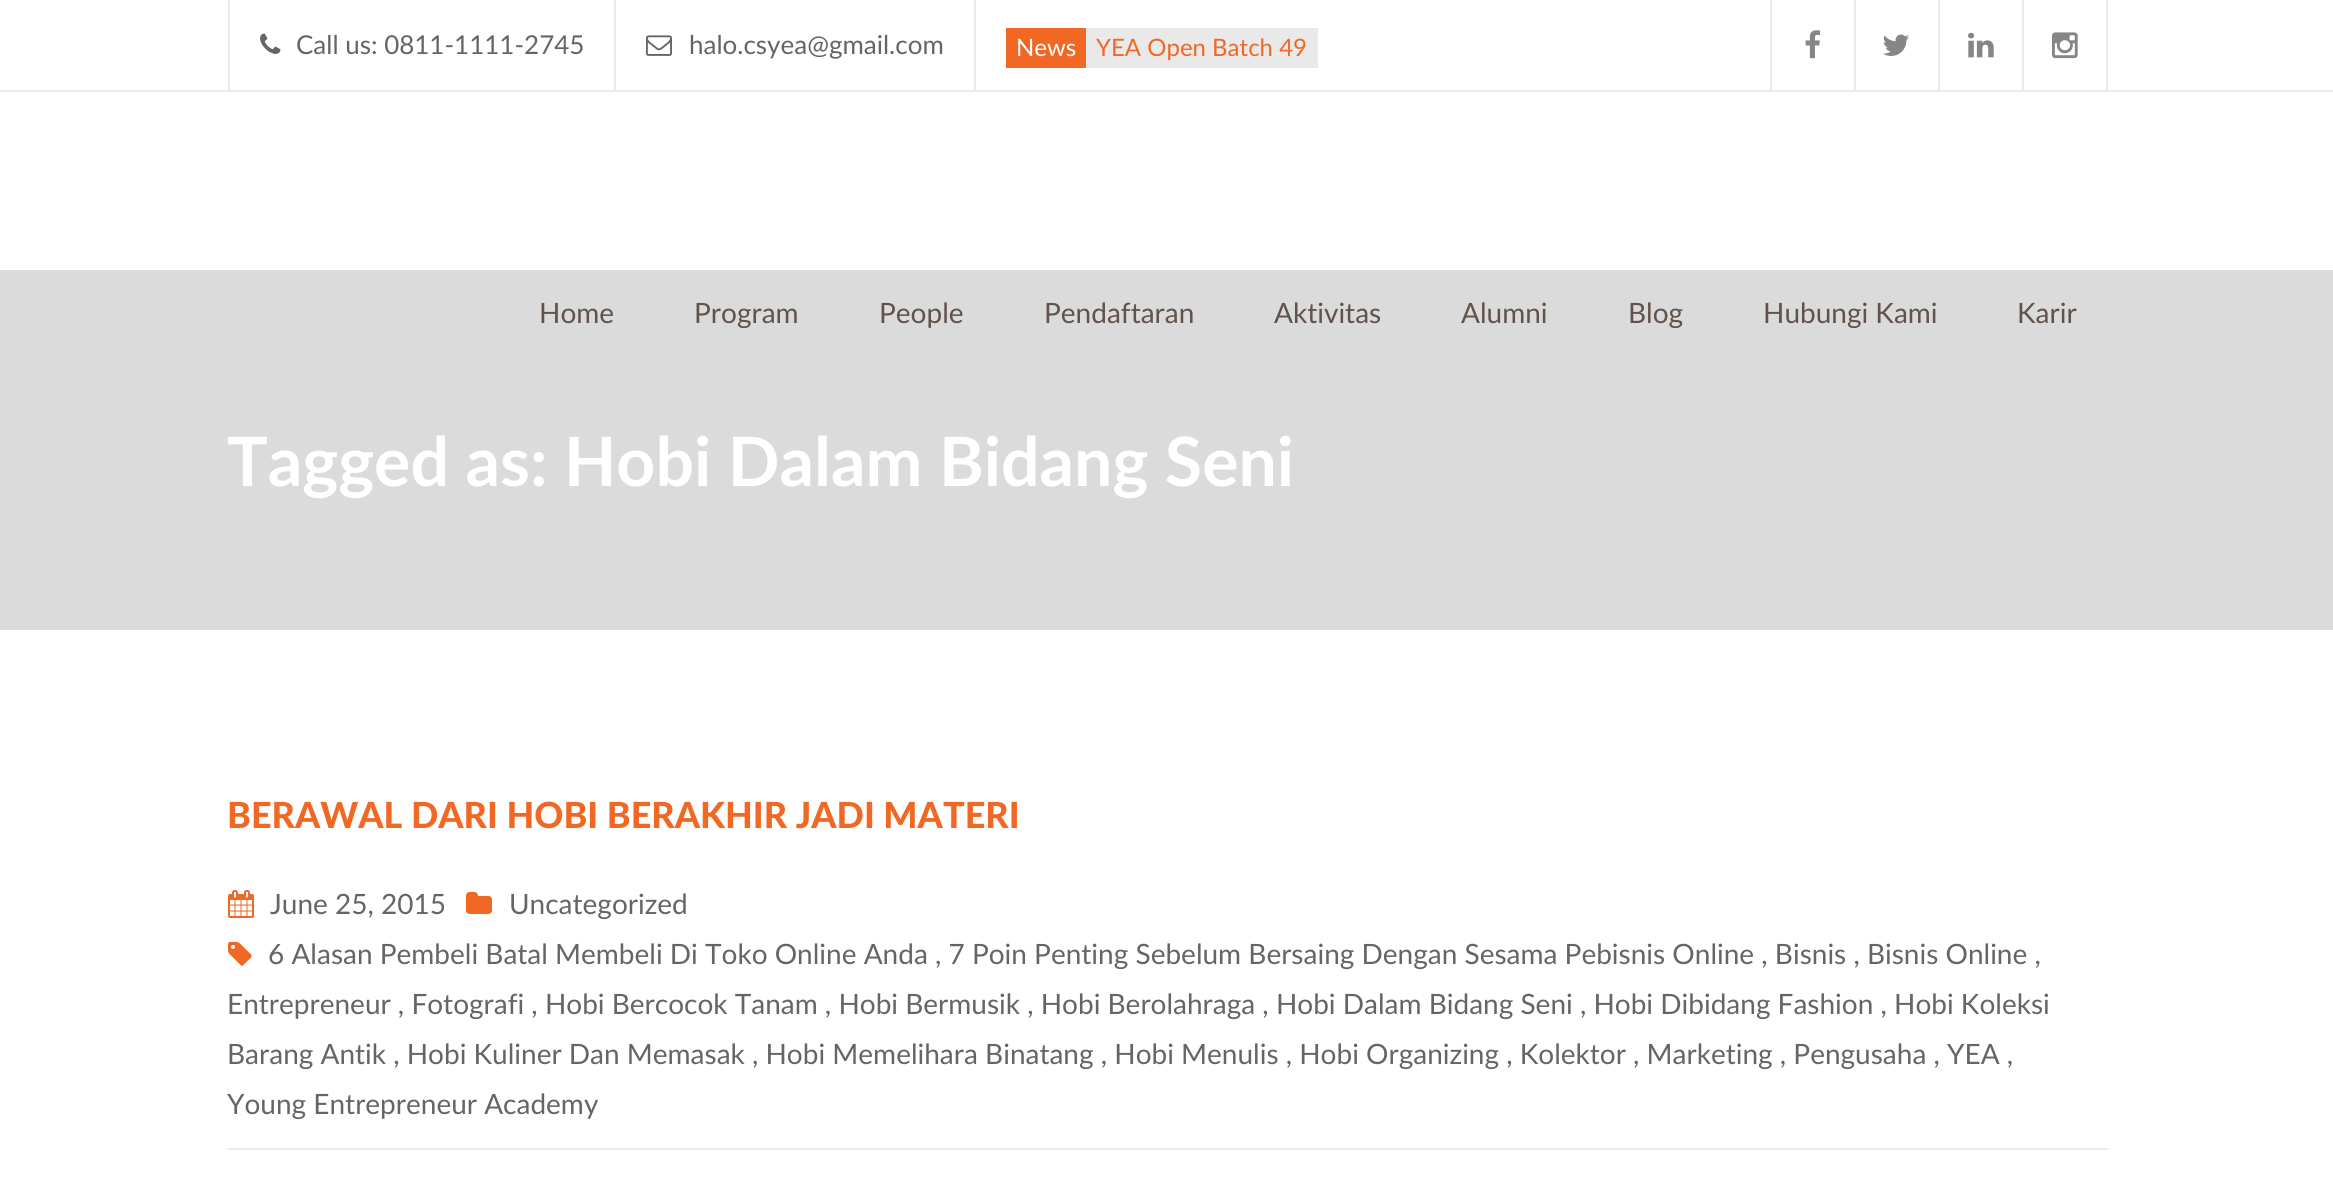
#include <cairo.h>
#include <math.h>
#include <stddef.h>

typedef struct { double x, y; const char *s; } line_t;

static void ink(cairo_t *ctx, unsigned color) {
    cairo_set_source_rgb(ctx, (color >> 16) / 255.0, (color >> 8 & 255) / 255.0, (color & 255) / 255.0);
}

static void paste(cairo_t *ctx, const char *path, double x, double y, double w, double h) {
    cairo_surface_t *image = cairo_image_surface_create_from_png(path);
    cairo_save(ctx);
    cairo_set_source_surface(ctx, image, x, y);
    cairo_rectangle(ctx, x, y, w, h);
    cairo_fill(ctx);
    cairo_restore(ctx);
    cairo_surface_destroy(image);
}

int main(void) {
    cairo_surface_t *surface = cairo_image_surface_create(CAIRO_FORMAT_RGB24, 2333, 1178);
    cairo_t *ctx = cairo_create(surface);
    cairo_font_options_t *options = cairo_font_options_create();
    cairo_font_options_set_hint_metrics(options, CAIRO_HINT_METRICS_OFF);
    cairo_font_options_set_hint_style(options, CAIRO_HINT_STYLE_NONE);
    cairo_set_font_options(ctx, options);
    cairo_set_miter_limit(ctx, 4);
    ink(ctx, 0xFFFFFF);
    cairo_paint(ctx);
    ink(ctx, 0xE9E9E9);
    cairo_rectangle(ctx, 0, 90, 2333, 2);
    cairo_fill(ctx);
    cairo_rectangle(ctx, 228, 0, 2, 90);
    cairo_fill(ctx);
    paste(ctx, "media/1.png", 260, 33, 21, 21);
    cairo_select_font_face(ctx, "Lato", CAIRO_FONT_SLANT_NORMAL, CAIRO_FONT_WEIGHT_NORMAL);
    cairo_set_font_size(ctx, 26);
    ink(ctx, 0x666565);
    cairo_move_to(ctx, 296, 54);
    cairo_show_text(ctx, "Call us: 0811-1111-2745");
    ink(ctx, 0xE9E9E9);
    cairo_rectangle(ctx, 614, 0, 2, 90);
    cairo_fill(ctx);
    paste(ctx, "media/2.png", 646, 35, 26, 21);
    ink(ctx, 0x666565);
    cairo_move_to(ctx, 689, 54);
    cairo_show_text(ctx, "halo.csyea@gmail.com");
    ink(ctx, 0xE9E9E9);
    cairo_rectangle(ctx, 974, 0, 2, 90);
    cairo_fill(ctx);
    ink(ctx, 0xF16824);
    cairo_rectangle(ctx, 1006, 28, 80, 40);
    cairo_fill(ctx);
    cairo_set_font_size(ctx, 24);
    ink(ctx, 0xFFFFFF);
    cairo_move_to(ctx, 1016, 56);
    cairo_show_text(ctx, "News");
    ink(ctx, 0xE9E9E9);
    cairo_rectangle(ctx, 1086, 28, 232, 40);
    cairo_fill(ctx);
    ink(ctx, 0xF16824);
    cairo_move_to(ctx, 1096, 56);
    cairo_show_text(ctx, "YEA Open Batch 49");
    ink(ctx, 0xE9E9E9);
    cairo_rectangle(ctx, 1770, 0, 2, 90);
    cairo_fill(ctx);
    cairo_rectangle(ctx, 1854, 0, 2, 90);
    cairo_fill(ctx);
    paste(ctx, "media/3.png", 1805, 30, 16, 29);
    cairo_rectangle(ctx, 1938, 0, 2, 90);
    cairo_fill(ctx);
    paste(ctx, "media/4.png", 1883, 34, 26, 22);
    cairo_rectangle(ctx, 2022, 0, 2, 90);
    cairo_fill(ctx);
    paste(ctx, "media/5.png", 1968, 32, 26, 26);
    cairo_rectangle(ctx, 2106, 0, 2, 90);
    cairo_fill(ctx);
    paste(ctx, "media/6.png", 2052, 32, 26, 27);
    ink(ctx, 0xDBDBDB);
    cairo_rectangle(ctx, 0, 270, 2333, 360);
    cairo_fill(ctx);
    cairo_set_font_size(ctx, 28);
    ink(ctx, 0x62524C);
    {
        static const line_t items[] = {
            {539, 323, "Home"},
            {694, 323, "Program"},
            {879, 323, "People"},
            {1044, 323, "Pendaftaran"},
            {1274, 323, "Aktivitas"},
            {1461, 323, "Alumni"},
            {1628, 323, "Blog"},
            {1763, 323, "Hubungi Kami"},
            {2017, 323, "Karir"},
        };
        for (size_t i = 0; i < sizeof items / sizeof *items; i++) {
            cairo_move_to(ctx, items[i].x, items[i].y);
            cairo_show_text(ctx, items[i].s);
        }
    }
    cairo_select_font_face(ctx, "Lato", CAIRO_FONT_SLANT_NORMAL, CAIRO_FONT_WEIGHT_BOLD);
    cairo_set_font_size(ctx, 68);
    ink(ctx, 0xFFFFFF);
    cairo_move_to(ctx, 227, 486);
    cairo_show_text(ctx, "Tagged as: Hobi Dalam Bidang Seni");
    cairo_select_font_face(ctx, "Lato Black", CAIRO_FONT_SLANT_NORMAL, CAIRO_FONT_WEIGHT_NORMAL);
    cairo_set_font_size(ctx, 36);
    ink(ctx, 0xF16824);
    cairo_move_to(ctx, 227, 828);
    cairo_show_text(ctx, "BERAWAL DARI HOBI BERAKHIR JADI MATERI");
    ink(ctx, 0xEAEAEA);
    cairo_rectangle(ctx, 228, 1148, 1880, 2);
    cairo_fill(ctx);
    paste(ctx, "media/7.png", 228, 890, 26, 28);
    cairo_select_font_face(ctx, "Lato", CAIRO_FONT_SLANT_NORMAL, CAIRO_FONT_WEIGHT_NORMAL);
    cairo_set_font_size(ctx, 28);
    ink(ctx, 0x666565);
    cairo_move_to(ctx, 270, 914);
    cairo_show_text(ctx, "June 25, 2015");
    paste(ctx, "media/8.png", 466, 892, 26, 22);
    cairo_move_to(ctx, 509, 914);
    cairo_show_text(ctx, "Uncategorized");
    paste(ctx, "media/9.png", 228, 942, 24, 24);
    {
        static const line_t items[] = {
            {268, 964, "6 Alasan Pembeli Batal Membeli Di Toko Online Anda , 7 Poin Penting Sebelum Bersaing Dengan Sesama Pebisnis Online , Bisnis , Bisnis Online ,"},
            {227, 1014, "Entrepreneur , Fotografi , Hobi Bercocok Tanam , Hobi Bermusik , Hobi Berolahraga , Hobi Dalam Bidang Seni , Hobi Dibidang Fashion , Hobi Koleksi"},
            {227, 1064, "Barang Antik , Hobi Kuliner Dan Memasak , Hobi Memelihara Binatang , Hobi Menulis , Hobi Organizing , Kolektor , Marketing , Pengusaha , YEA ,"},
            {227, 1114, "Young Entrepreneur Academy"},
        };
        for (size_t i = 0; i < sizeof items / sizeof *items; i++) {
            cairo_move_to(ctx, items[i].x, items[i].y);
            cairo_show_text(ctx, items[i].s);
        }
    }
    cairo_surface_write_to_png(surface, "image.png");
    cairo_font_options_destroy(options);
    cairo_destroy(ctx);
    cairo_surface_destroy(surface);
    return 0;
}
